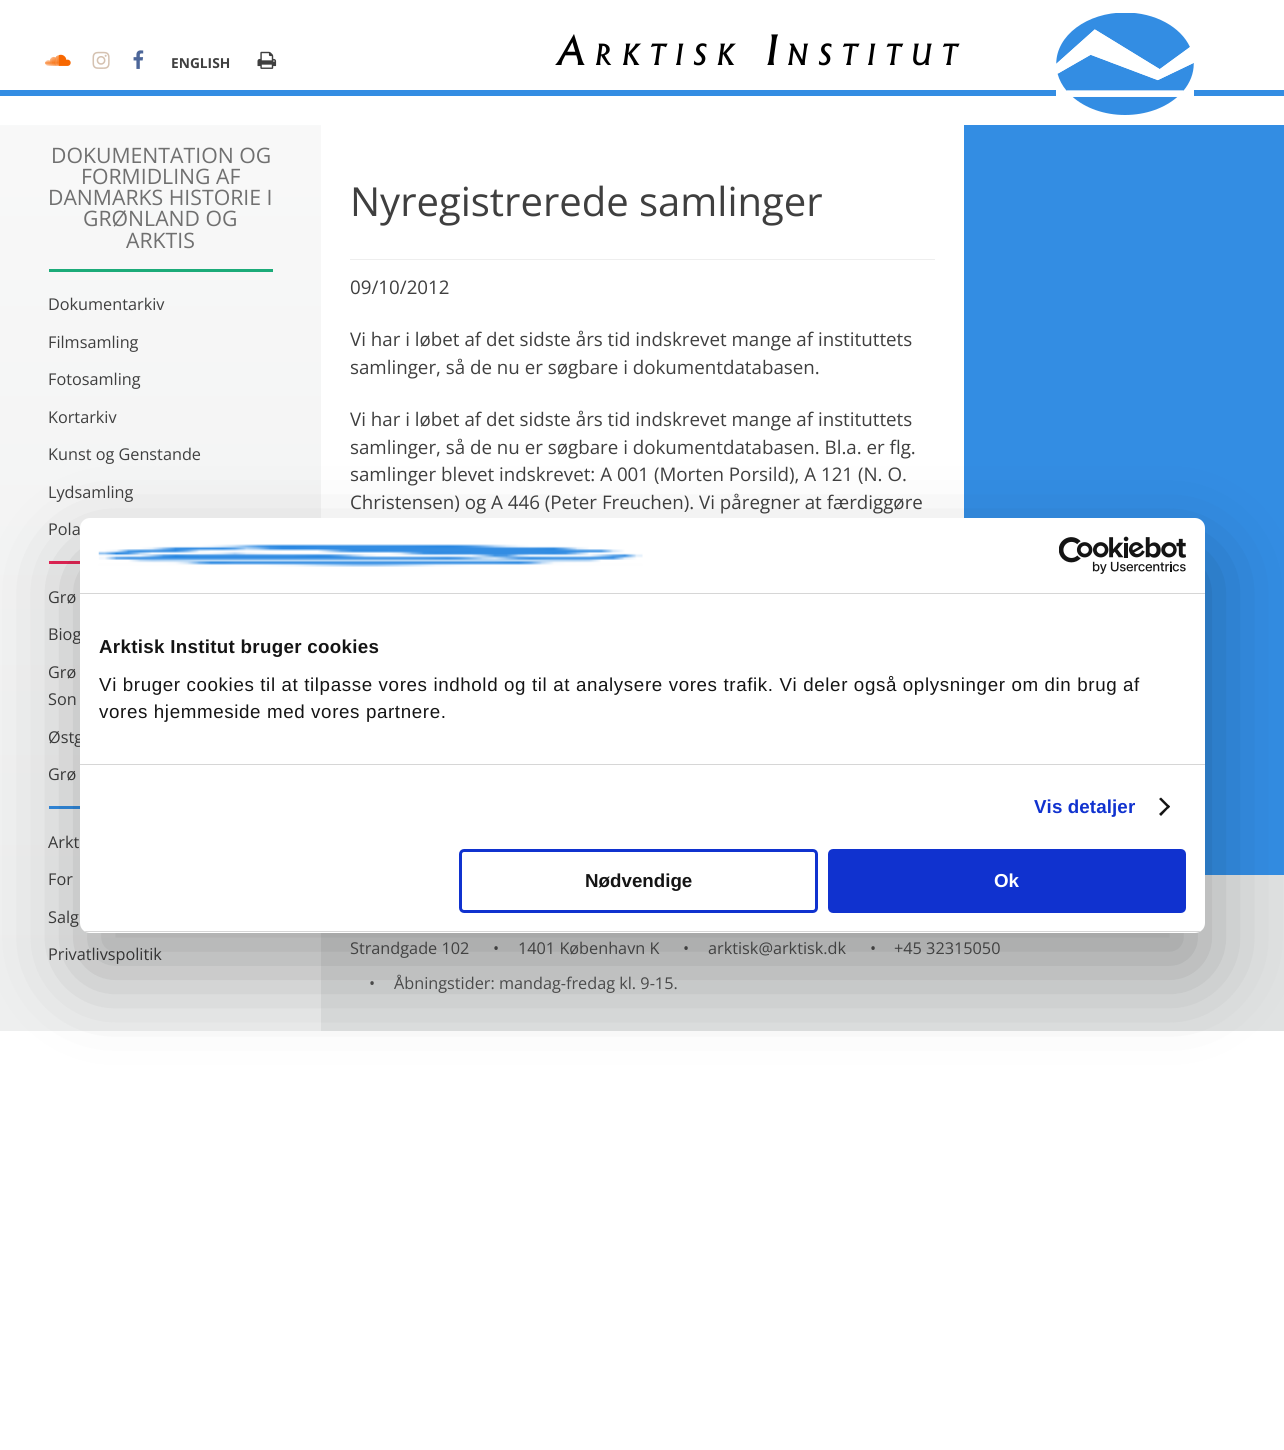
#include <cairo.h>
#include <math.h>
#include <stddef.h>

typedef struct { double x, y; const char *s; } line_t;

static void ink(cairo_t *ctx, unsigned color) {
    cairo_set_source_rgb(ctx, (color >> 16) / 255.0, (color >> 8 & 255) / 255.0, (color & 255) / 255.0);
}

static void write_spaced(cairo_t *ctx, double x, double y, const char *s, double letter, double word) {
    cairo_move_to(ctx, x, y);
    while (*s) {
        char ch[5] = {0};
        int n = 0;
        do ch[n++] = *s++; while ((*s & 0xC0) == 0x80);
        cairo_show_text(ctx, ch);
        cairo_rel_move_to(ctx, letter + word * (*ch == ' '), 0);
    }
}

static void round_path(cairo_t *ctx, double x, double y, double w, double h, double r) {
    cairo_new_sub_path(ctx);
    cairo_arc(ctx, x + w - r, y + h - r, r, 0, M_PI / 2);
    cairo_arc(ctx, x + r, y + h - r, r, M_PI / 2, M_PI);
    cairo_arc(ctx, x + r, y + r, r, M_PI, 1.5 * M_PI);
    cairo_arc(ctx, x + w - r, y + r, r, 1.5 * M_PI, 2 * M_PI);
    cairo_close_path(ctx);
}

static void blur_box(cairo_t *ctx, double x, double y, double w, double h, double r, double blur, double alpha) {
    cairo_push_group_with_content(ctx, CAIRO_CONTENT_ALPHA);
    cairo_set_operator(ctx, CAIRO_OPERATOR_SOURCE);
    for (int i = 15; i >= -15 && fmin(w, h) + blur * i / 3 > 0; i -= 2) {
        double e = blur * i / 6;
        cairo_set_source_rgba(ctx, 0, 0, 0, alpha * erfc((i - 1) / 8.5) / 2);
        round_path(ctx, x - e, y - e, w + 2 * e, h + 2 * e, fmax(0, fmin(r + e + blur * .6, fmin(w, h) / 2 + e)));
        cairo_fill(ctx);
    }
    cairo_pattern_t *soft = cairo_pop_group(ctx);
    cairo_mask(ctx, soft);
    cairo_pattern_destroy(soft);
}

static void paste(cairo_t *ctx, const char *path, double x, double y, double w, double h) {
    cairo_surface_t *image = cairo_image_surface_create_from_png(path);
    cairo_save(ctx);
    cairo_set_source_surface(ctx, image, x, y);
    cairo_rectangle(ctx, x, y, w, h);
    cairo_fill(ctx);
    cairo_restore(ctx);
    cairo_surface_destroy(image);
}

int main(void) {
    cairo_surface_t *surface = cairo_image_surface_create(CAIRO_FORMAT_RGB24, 1284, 1450);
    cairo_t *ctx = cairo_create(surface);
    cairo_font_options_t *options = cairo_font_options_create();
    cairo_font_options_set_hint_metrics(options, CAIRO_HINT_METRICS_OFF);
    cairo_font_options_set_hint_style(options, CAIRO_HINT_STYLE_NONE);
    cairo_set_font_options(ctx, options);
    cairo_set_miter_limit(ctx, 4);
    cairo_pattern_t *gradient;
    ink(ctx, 0xFFFFFF);
    cairo_paint(ctx);
    ink(ctx, 0xEEEFEF);
    cairo_rectangle(ctx, 0, 986, 321, 45);
    cairo_fill(ctx);
    cairo_select_font_face(ctx, "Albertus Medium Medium", CAIRO_FONT_SLANT_ITALIC, CAIRO_FONT_WEIGHT_NORMAL);
    cairo_set_font_size(ctx, 40);
    ink(ctx, 0x000000);
    write_spaced(ctx, 557, 65, "A", 10, 0);
    cairo_set_font_size(ctx, 28);
    write_spaced(ctx, 595, 65, "RKTISK", 10, 0);
    cairo_set_font_size(ctx, 40);
    write_spaced(ctx, 766, 65, "I", 10, 0);
    cairo_set_font_size(ctx, 28);
    write_spaced(ctx, 787, 65, "NSTITUT", 10, 0);
    ink(ctx, 0x338DE3);
    cairo_rectangle(ctx, 0, 90, 1284, 6);
    cairo_fill(ctx);
    paste(ctx, "media/1.png", 1056, 13, 138, 102);
    gradient = cairo_pattern_create_linear(161, 0, 161, 986);
    cairo_pattern_add_color_stop_rgba(gradient, 0, 0.98, 0.98, 0.98, 1);
    cairo_pattern_add_color_stop_rgba(gradient, 1, 0.933, 0.937, 0.937, 1);
    cairo_set_source(ctx, gradient);
    cairo_pattern_destroy(gradient);
    cairo_rectangle(ctx, 0, 125, 321, 861);
    cairo_fill(ctx);
    paste(ctx, "media/2.png", 45, 54, 26, 12);
    paste(ctx, "media/3.png", 92, 51, 18, 18);
    paste(ctx, "media/4.png", 133, 50, 11, 19);
    cairo_select_font_face(ctx, "Open Sans", CAIRO_FONT_SLANT_NORMAL, CAIRO_FONT_WEIGHT_BOLD);
    cairo_set_font_size(ctx, 13.75);
    ink(ctx, 0x3F3F3F);
    cairo_move_to(ctx, 171, 68);
    cairo_show_text(ctx, "ENGLISH");
    paste(ctx, "media/5.png", 257, 51, 20, 18);
    cairo_select_font_face(ctx, "Open Sans", CAIRO_FONT_SLANT_NORMAL, CAIRO_FONT_WEIGHT_NORMAL);
    cairo_set_font_size(ctx, 21.25);
    ink(ctx, 0x707070);
    {
        static const line_t items[] = {
            {51, 163, "DOKUMENTATION OG"},
            {81, 184, "FORMIDLING AF"},
            {48, 205, "DANMARKS HISTORIE I"},
            {83, 226, "GRØNLAND OG"},
            {126, 248, "ARKTIS"},
        };
        for (size_t i = 0; i < sizeof items / sizeof *items; i++) {
            cairo_move_to(ctx, items[i].x, items[i].y);
            cairo_show_text(ctx, items[i].s);
        }
    }
    ink(ctx, 0x1CAB79);
    cairo_rectangle(ctx, 49, 269, 224, 3);
    cairo_fill(ctx);
    cairo_set_font_size(ctx, 16.25);
    ink(ctx, 0x3F3F3F);
    {
        static const line_t items[] = {
            {48, 310, "Dokumentarkiv"},
            {48, 348, "Filmsamling"},
            {48, 385, "Fotosamling"},
            {48, 423, "Kortarkiv"},
            {48, 460, "Kunst og Genstande"},
            {48, 498, "Lydsamling"},
            {48, 535, "Pola"},
        };
        for (size_t i = 0; i < sizeof items / sizeof *items; i++) {
            cairo_move_to(ctx, items[i].x, items[i].y);
            cairo_show_text(ctx, items[i].s);
        }
    }
    ink(ctx, 0xE92657);
    cairo_rectangle(ctx, 49, 561, 31, 3);
    cairo_fill(ctx);
    ink(ctx, 0x3F3F3F);
    {
        static const line_t items[] = {
            {48, 603, "Grø"},
            {48, 640, "Biog"},
            {48, 678, "Grø"},
            {48, 705, "Son"},
            {48, 743, "Østg"},
            {48, 780, "Grø"},
        };
        for (size_t i = 0; i < sizeof items / sizeof *items; i++) {
            cairo_move_to(ctx, items[i].x, items[i].y);
            cairo_show_text(ctx, items[i].s);
        }
    }
    ink(ctx, 0x338DE3);
    cairo_rectangle(ctx, 49, 806, 31, 3);
    cairo_fill(ctx);
    ink(ctx, 0x3F3F3F);
    {
        static const line_t items[] = {
            {48, 848, "Arkt"},
            {48, 885, "For"},
            {48, 923, "Salg"},
            {48, 960, "Privatlivspolitik"},
        };
        for (size_t i = 0; i < sizeof items / sizeof *items; i++) {
            cairo_move_to(ctx, items[i].x, items[i].y);
            cairo_show_text(ctx, items[i].s);
        }
    }
    cairo_set_font_size(ctx, 40);
    cairo_move_to(ctx, 350, 216);
    cairo_show_text(ctx, "Nyregistrerede samlinger");
    ink(ctx, 0xEEEEEE);
    cairo_rectangle(ctx, 350, 259, 585, 1);
    cairo_fill(ctx);
    cairo_set_font_size(ctx, 18.75);
    ink(ctx, 0x3F3F3F);
    {
        static const line_t items[] = {
            {350, 294, "09/10/2012"},
            {350, 346, "Vi har i løbet af det sidste års tid indskrevet mange af instituttets"},
            {350, 374, "samlinger, så de nu er søgbare i dokumentdatabasen."},
            {350, 426, "Vi har i løbet af det sidste års tid indskrevet mange af instituttets"},
            {350, 454, "samlinger, så de nu er søgbare i dokumentdatabasen. Bl.a. er flg."},
            {350, 481, "samlinger blevet indskrevet: A 001 (Morten Porsild), A 121 (N. O."},
            {350, 509, "Christensen) og A 446 (Peter Freuchen). Vi påregner at færdiggøre"},
        };
        for (size_t i = 0; i < sizeof items / sizeof *items; i++) {
            cairo_move_to(ctx, items[i].x, items[i].y);
            cairo_show_text(ctx, items[i].s);
        }
    }
    ink(ctx, 0x338DE3);
    cairo_rectangle(ctx, 964, 125, 320, 750);
    cairo_fill(ctx);
    ink(ctx, 0xE0E2E2);
    cairo_rectangle(ctx, 321, 875, 963, 156);
    cairo_fill(ctx);
    cairo_set_font_size(ctx, 16.25);
    ink(ctx, 0x535353);
    {
        static const line_t items[] = {
            {350, 954, "Strandgade 102"},
            {493, 954, "•"},
            {518, 954, "1401 København K"},
            {683, 954, "•"},
            {708, 954, "arktisk@arktisk.dk"},
            {870, 954, "•"},
            {894, 954, "+45 32315050"},
            {369, 989, "•"},
            {394, 989, "Åbningstider: mandag-fredag kl. 9-15."},
        };
        for (size_t i = 0; i < sizeof items / sizeof *items; i++) {
            cairo_move_to(ctx, items[i].x, items[i].y);
            cairo_show_text(ctx, items[i].s);
        }
    }
    ink(ctx, 0x000000);
    blur_box(ctx, 80, 558, 1125, 415, 10, 42.5, 0.3);
    ink(ctx, 0xFFFFFF);
    round_path(ctx, 80, 518, 1125, 415, 10);
    cairo_fill(ctx);
    ink(ctx, 0xD6D6D6);
    cairo_rectangle(ctx, 80, 593, 1125, 1);
    cairo_fill(ctx);
    paste(ctx, "media/6.png", 98, 544, 545, 23);
    paste(ctx, "media/7.png", 1059, 536, 127, 38);
    cairo_rectangle(ctx, 80, 764, 1125, 1);
    cairo_fill(ctx);
    cairo_select_font_face(ctx, "Liberation Sans", CAIRO_FONT_SLANT_NORMAL, CAIRO_FONT_WEIGHT_BOLD);
    cairo_set_font_size(ctx, 18.75);
    ink(ctx, 0x141414);
    write_spaced(ctx, 99, 653, "Arktisk Institut bruger cookies", 0.3, 0);
    cairo_select_font_face(ctx, "Liberation Sans", CAIRO_FONT_SLANT_NORMAL, CAIRO_FONT_WEIGHT_NORMAL);
    write_spaced(ctx, 99, 691, "Vi bruger cookies til at tilpasse vores indhold og til at analysere vores trafik. Vi deler også oplysninger om din brug af", 0.62, 0);
    write_spaced(ctx, 99, 718, "vores hjemmeside med vores partnere.", 0.62, 0);
    cairo_select_font_face(ctx, "Liberation Sans", CAIRO_FONT_SLANT_NORMAL, CAIRO_FONT_WEIGHT_BOLD);
    ink(ctx, 0x1032CF);
    write_spaced(ctx, 1034, 813, "Vis detaljer", 0.1, 0);
    ink(ctx, 0x141414);
    cairo_new_path(ctx);
    cairo_move_to(ctx, 1161, 797.5);
    cairo_line_to(ctx, 1170, 806.5);
    cairo_line_to(ctx, 1168.5, 808.5);
    cairo_line_to(ctx, 1159, 799);
    cairo_close_path(ctx);
    cairo_fill(ctx);
    cairo_new_path(ctx);
    cairo_move_to(ctx, 1168.5, 805);
    cairo_line_to(ctx, 1170, 806.5);
    cairo_line_to(ctx, 1161, 816);
    cairo_line_to(ctx, 1159, 814);
    cairo_close_path(ctx);
    cairo_fill(ctx);
    cairo_save(ctx);
    round_path(ctx, 80, 518, 1125, 415, 10);
    cairo_clip(ctx);
    ink(ctx, 0xD6D6D6);
    cairo_rectangle(ctx, 80, 931, 1125, 1);
    cairo_fill(ctx);
    cairo_restore(ctx);
    round_path(ctx, 460.5, 850.5, 356, 61, 3.5);
    ink(ctx, 0x1032CF);
    cairo_set_line_width(ctx, 3);
    cairo_stroke(ctx);
    ink(ctx, 0x141414);
    cairo_move_to(ctx, 585, 887);
    cairo_show_text(ctx, "Nødvendige");
    ink(ctx, 0x1032CF);
    round_path(ctx, 829.5, 850.5, 355, 61, 3.5);
    cairo_fill_preserve(ctx);
    cairo_stroke(ctx);
    ink(ctx, 0xFFFFFF);
    cairo_move_to(ctx, 994, 887);
    cairo_show_text(ctx, "Ok");
    cairo_surface_write_to_png(surface, "image.png");
    cairo_font_options_destroy(options);
    cairo_destroy(ctx);
    cairo_surface_destroy(surface);
    return 0;
}
